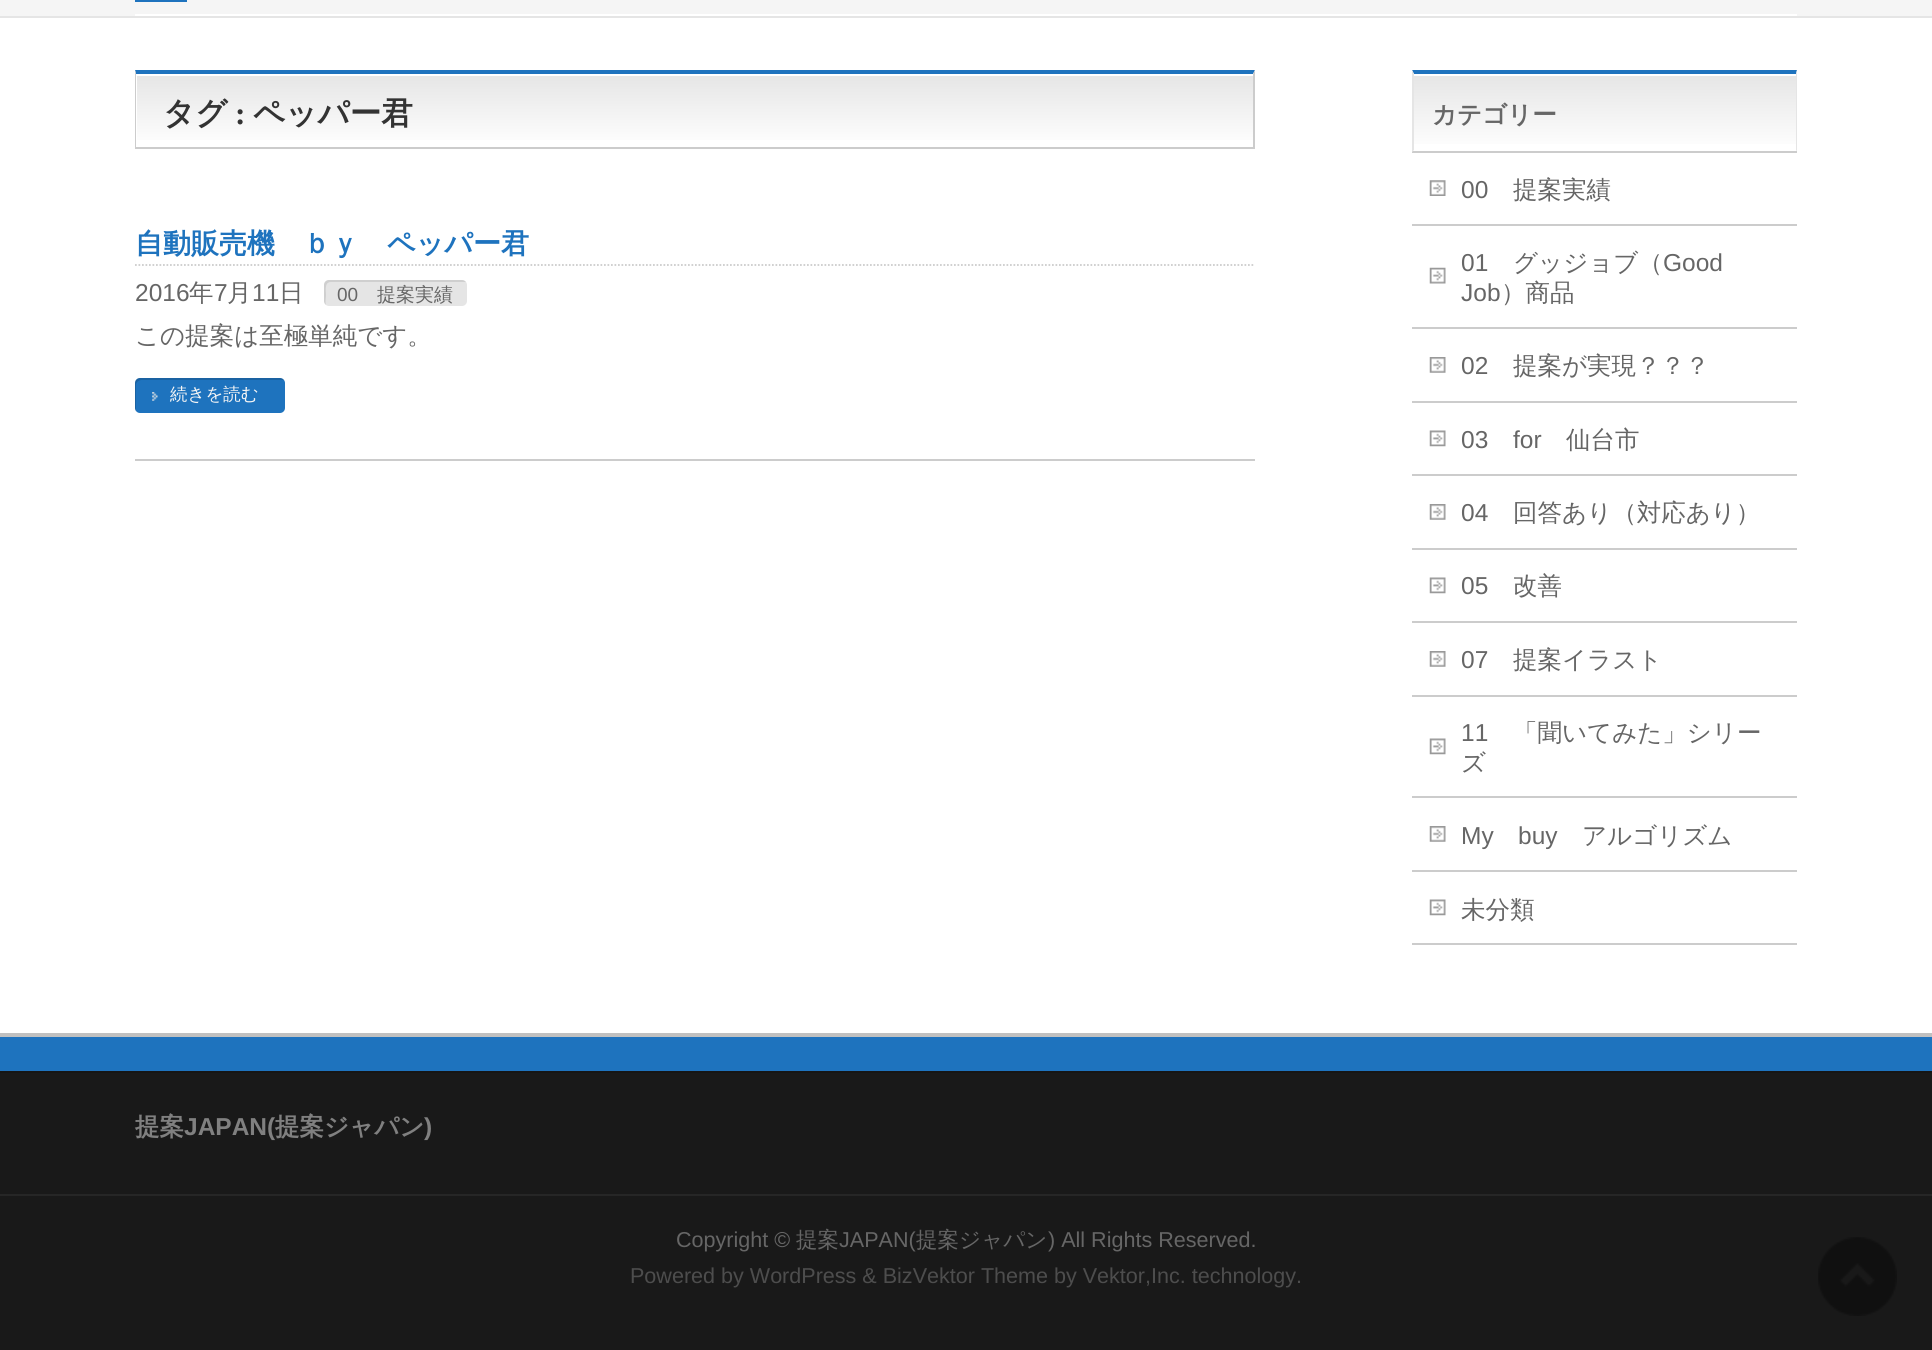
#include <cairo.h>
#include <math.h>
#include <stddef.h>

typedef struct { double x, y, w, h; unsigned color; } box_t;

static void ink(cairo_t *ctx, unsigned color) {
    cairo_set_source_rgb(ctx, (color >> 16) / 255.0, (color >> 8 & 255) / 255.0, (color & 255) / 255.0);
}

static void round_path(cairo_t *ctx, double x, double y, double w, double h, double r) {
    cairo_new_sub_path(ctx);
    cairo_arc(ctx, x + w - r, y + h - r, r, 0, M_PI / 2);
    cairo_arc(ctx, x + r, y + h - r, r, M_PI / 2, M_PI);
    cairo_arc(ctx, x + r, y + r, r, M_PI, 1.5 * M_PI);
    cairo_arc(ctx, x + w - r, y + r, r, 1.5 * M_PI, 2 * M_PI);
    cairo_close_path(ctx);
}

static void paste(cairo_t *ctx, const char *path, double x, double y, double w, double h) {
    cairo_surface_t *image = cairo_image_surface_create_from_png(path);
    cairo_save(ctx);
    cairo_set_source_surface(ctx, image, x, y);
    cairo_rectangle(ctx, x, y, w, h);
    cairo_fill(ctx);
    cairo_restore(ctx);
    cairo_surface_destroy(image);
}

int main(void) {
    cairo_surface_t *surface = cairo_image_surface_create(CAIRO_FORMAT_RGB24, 1932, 1350);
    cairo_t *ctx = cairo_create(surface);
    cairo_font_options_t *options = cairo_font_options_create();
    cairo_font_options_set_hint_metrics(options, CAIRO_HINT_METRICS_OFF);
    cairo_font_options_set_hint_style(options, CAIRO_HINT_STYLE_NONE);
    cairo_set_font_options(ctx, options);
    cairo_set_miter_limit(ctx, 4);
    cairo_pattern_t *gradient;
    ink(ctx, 0xFFFFFF);
    cairo_paint(ctx);
    {
        static const box_t items[] = {
            {0, 0, 1932, 16, 0xF5F5F5},
            {0, 16, 1932, 2, 0xE5E5E5},
            {135, 14, 1662, 2, 0xFFFFFF},
            {135, 0, 52, 2, 0x1E73BE},
        };
        for (size_t i = 0; i < sizeof items / sizeof *items; i++) {
            ink(ctx, items[i].color);
            cairo_rectangle(ctx, items[i].x, items[i].y, items[i].w, items[i].h);
            cairo_fill(ctx);
        }
    }
    gradient = cairo_pattern_create_linear(137, 74, 137, 147);
    cairo_pattern_add_color_stop_rgba(gradient, 0, 0.898, 0.898, 0.898, 1);
    cairo_pattern_add_color_stop_rgba(gradient, 1, 1, 1, 1, 1);
    cairo_set_source(ctx, gradient);
    cairo_pattern_destroy(gradient);
    cairo_rectangle(ctx, 137, 76, 1116, 64);
    cairo_fill(ctx);
    ink(ctx, 0x1E73BE);
    cairo_new_path(ctx);
    cairo_move_to(ctx, 135, 70);
    cairo_line_to(ctx, 1255, 70);
    cairo_line_to(ctx, 1253, 74);
    cairo_line_to(ctx, 136, 74);
    cairo_close_path(ctx);
    cairo_fill(ctx);
    ink(ctx, 0xCCCCCC);
    cairo_new_path(ctx);
    cairo_move_to(ctx, 1255, 70);
    cairo_line_to(ctx, 1255, 149);
    cairo_line_to(ctx, 1253, 147);
    cairo_line_to(ctx, 1253, 74);
    cairo_close_path(ctx);
    cairo_fill(ctx);
    cairo_rectangle(ctx, 135, 147, 1120, 2);
    cairo_fill(ctx);
    cairo_new_path(ctx);
    cairo_move_to(ctx, 135, 149);
    cairo_line_to(ctx, 135, 70);
    cairo_line_to(ctx, 136, 74);
    cairo_line_to(ctx, 136, 147);
    cairo_close_path(ctx);
    cairo_fill(ctx);
    cairo_select_font_face(ctx, "WenQuanYi Zen Hei", CAIRO_FONT_SLANT_NORMAL, CAIRO_FONT_WEIGHT_BOLD);
    cairo_set_font_size(ctx, 31.5);
    ink(ctx, 0x333333);
    cairo_move_to(ctx, 163, 124);
    cairo_show_text(ctx, "タグ");
    cairo_select_font_face(ctx, "Liberation Serif", CAIRO_FONT_SLANT_NORMAL, CAIRO_FONT_WEIGHT_BOLD);
    cairo_move_to(ctx, 235, 124);
    cairo_show_text(ctx, ":");
    cairo_select_font_face(ctx, "WenQuanYi Zen Hei", CAIRO_FONT_SLANT_NORMAL, CAIRO_FONT_WEIGHT_BOLD);
    cairo_move_to(ctx, 253, 124);
    cairo_show_text(ctx, "ペッパー君");
    ink(ctx, 0xCCCCCC);
    cairo_rectangle(ctx, 135, 459, 1120, 2);
    cairo_fill(ctx);
    cairo_new_path(ctx);
    cairo_move_to(ctx, 135, 265);
    cairo_line_to(ctx, 1255, 265);
    cairo_set_line_width(ctx, 1.8);
    cairo_set_dash(ctx, (double[]){1.75, 1.75}, 2, 0);
    cairo_stroke(ctx);
    cairo_set_font_size(ctx, 28);
    ink(ctx, 0x1E73BE);
    cairo_move_to(ctx, 135, 253);
    cairo_show_text(ctx, "自動販売機　ｂｙ　ペッパー君");
    cairo_select_font_face(ctx, "Liberation Sans", CAIRO_FONT_SLANT_NORMAL, CAIRO_FONT_WEIGHT_NORMAL);
    cairo_set_font_size(ctx, 24.5);
    ink(ctx, 0x666666);
    cairo_move_to(ctx, 135, 301);
    cairo_show_text(ctx, "2016");
    cairo_select_font_face(ctx, "WenQuanYi Zen Hei Medium", CAIRO_FONT_SLANT_NORMAL, CAIRO_FONT_WEIGHT_NORMAL);
    cairo_move_to(ctx, 189, 301);
    cairo_show_text(ctx, "年");
    cairo_select_font_face(ctx, "Liberation Sans", CAIRO_FONT_SLANT_NORMAL, CAIRO_FONT_WEIGHT_NORMAL);
    cairo_move_to(ctx, 214, 301);
    cairo_show_text(ctx, "7");
    cairo_select_font_face(ctx, "WenQuanYi Zen Hei Medium", CAIRO_FONT_SLANT_NORMAL, CAIRO_FONT_WEIGHT_NORMAL);
    cairo_move_to(ctx, 227, 301);
    cairo_show_text(ctx, "月");
    cairo_select_font_face(ctx, "Liberation Sans", CAIRO_FONT_SLANT_NORMAL, CAIRO_FONT_WEIGHT_NORMAL);
    cairo_move_to(ctx, 252, 301);
    cairo_show_text(ctx, "11");
    cairo_select_font_face(ctx, "WenQuanYi Zen Hei Medium", CAIRO_FONT_SLANT_NORMAL, CAIRO_FONT_WEIGHT_NORMAL);
    cairo_move_to(ctx, 279, 301);
    cairo_show_text(ctx, "日");
    ink(ctx, 0xE5E5E5);
    round_path(ctx, 324, 280, 143, 26, 5);
    cairo_fill(ctx);
    cairo_set_source_rgba(ctx, 0, 0, 0, 0.1);
    cairo_new_path(ctx);
    cairo_move_to(ctx, 331, 282);
    cairo_line_to(ctx, 464, 282);
    cairo_line_to(ctx, 466, 282);
    cairo_curve_to(ctx, 465, 281, 464, 280, 462, 280);
    cairo_line_to(ctx, 329, 280);
    cairo_curve_to(ctx, 326, 280, 324, 282, 324, 285);
    cairo_line_to(ctx, 324, 301);
    cairo_curve_to(ctx, 324, 303, 325, 304, 326, 305);
    cairo_curve_to(ctx, 325, 302, 326, 298, 326, 295);
    cairo_curve_to(ctx, 326, 291, 324, 282, 331, 282);
    cairo_close_path(ctx);
    cairo_fill(ctx);
    cairo_select_font_face(ctx, "Liberation Sans", CAIRO_FONT_SLANT_NORMAL, CAIRO_FONT_WEIGHT_NORMAL);
    cairo_set_font_size(ctx, 19);
    ink(ctx, 0x666666);
    cairo_move_to(ctx, 337, 301);
    cairo_show_text(ctx, "00");
    cairo_select_font_face(ctx, "WenQuanYi Zen Hei Medium", CAIRO_FONT_SLANT_NORMAL, CAIRO_FONT_WEIGHT_NORMAL);
    cairo_move_to(ctx, 377, 301);
    cairo_show_text(ctx, "提案実績");
    cairo_set_font_size(ctx, 24.5);
    cairo_move_to(ctx, 135, 344);
    cairo_show_text(ctx, "この提案は至極単純です。");
    ink(ctx, 0x1E73BE);
    round_path(ctx, 135, 378, 150, 35, 5);
    cairo_fill(ctx);
    paste(ctx, "media/1.png", 152, 392, 6, 9);
    cairo_set_source_rgba(ctx, 0, 0, 0, 0.15);
    cairo_new_path(ctx);
    cairo_move_to(ctx, 142, 380);
    cairo_line_to(ctx, 282, 380);
    cairo_line_to(ctx, 284, 380);
    cairo_curve_to(ctx, 283, 379, 282, 378, 280, 378);
    cairo_line_to(ctx, 140, 378);
    cairo_curve_to(ctx, 137, 378, 135, 380, 135, 383);
    cairo_line_to(ctx, 135, 408);
    cairo_curve_to(ctx, 135, 409, 136, 411, 136, 412);
    cairo_line_to(ctx, 136, 410);
    cairo_line_to(ctx, 136, 385);
    cairo_curve_to(ctx, 136, 382, 139, 380, 142, 380);
    cairo_close_path(ctx);
    cairo_fill(ctx);
    cairo_set_font_size(ctx, 17.5);
    ink(ctx, 0xF5F5F5);
    cairo_move_to(ctx, 170, 400);
    cairo_show_text(ctx, "続きを読む");
    gradient = cairo_pattern_create_linear(1414, 74, 1414, 151);
    cairo_pattern_add_color_stop_rgba(gradient, 0, 0.898, 0.898, 0.898, 1);
    cairo_pattern_add_color_stop_rgba(gradient, 1, 1, 1, 1, 1);
    cairo_set_source(ctx, gradient);
    cairo_pattern_destroy(gradient);
    cairo_rectangle(ctx, 1414, 76, 382, 68);
    cairo_fill(ctx);
    ink(ctx, 0x1E73BE);
    cairo_new_path(ctx);
    cairo_move_to(ctx, 1412, 70);
    cairo_line_to(ctx, 1797, 70);
    cairo_line_to(ctx, 1796, 74);
    cairo_line_to(ctx, 1414, 74);
    cairo_close_path(ctx);
    cairo_fill(ctx);
    ink(ctx, 0xE5E5E5);
    cairo_new_path(ctx);
    cairo_move_to(ctx, 1797, 70);
    cairo_line_to(ctx, 1797, 152);
    cairo_line_to(ctx, 1796, 150);
    cairo_line_to(ctx, 1796, 74);
    cairo_close_path(ctx);
    cairo_fill(ctx);
    ink(ctx, 0xCCCCCC);
    cairo_rectangle(ctx, 1412, 151, 385, 2);
    cairo_fill(ctx);
    ink(ctx, 0xE5E5E5);
    cairo_new_path(ctx);
    cairo_move_to(ctx, 1412, 152);
    cairo_line_to(ctx, 1412, 70);
    cairo_line_to(ctx, 1414, 74);
    cairo_line_to(ctx, 1414, 150);
    cairo_close_path(ctx);
    cairo_fill(ctx);
    cairo_select_font_face(ctx, "WenQuanYi Zen Hei", CAIRO_FONT_SLANT_NORMAL, CAIRO_FONT_WEIGHT_BOLD);
    cairo_set_font_size(ctx, 24.5);
    ink(ctx, 0x666666);
    cairo_move_to(ctx, 1432, 123);
    cairo_show_text(ctx, "カテゴリー");
    ink(ctx, 0xCCCCCC);
    cairo_rectangle(ctx, 1412, 224, 385, 2);
    cairo_fill(ctx);
    paste(ctx, "media/2.png", 1429, 180, 17, 16);
    cairo_select_font_face(ctx, "Liberation Sans", CAIRO_FONT_SLANT_NORMAL, CAIRO_FONT_WEIGHT_NORMAL);
    ink(ctx, 0x666666);
    cairo_move_to(ctx, 1461, 198);
    cairo_show_text(ctx, "00");
    cairo_select_font_face(ctx, "WenQuanYi Zen Hei Medium", CAIRO_FONT_SLANT_NORMAL, CAIRO_FONT_WEIGHT_NORMAL);
    cairo_move_to(ctx, 1513, 198);
    cairo_show_text(ctx, "提案実績");
    ink(ctx, 0xCCCCCC);
    cairo_rectangle(ctx, 1412, 327, 385, 2);
    cairo_fill(ctx);
    paste(ctx, "media/3.png", 1429, 267, 17, 17);
    cairo_select_font_face(ctx, "Liberation Sans", CAIRO_FONT_SLANT_NORMAL, CAIRO_FONT_WEIGHT_NORMAL);
    ink(ctx, 0x666666);
    cairo_move_to(ctx, 1461, 271);
    cairo_show_text(ctx, "01");
    cairo_select_font_face(ctx, "WenQuanYi Zen Hei Medium", CAIRO_FONT_SLANT_NORMAL, CAIRO_FONT_WEIGHT_NORMAL);
    cairo_move_to(ctx, 1513, 271);
    cairo_show_text(ctx, "グッジョブ（");
    cairo_select_font_face(ctx, "Liberation Sans", CAIRO_FONT_SLANT_NORMAL, CAIRO_FONT_WEIGHT_NORMAL);
    cairo_move_to(ctx, 1663, 271);
    cairo_show_text(ctx, "Good");
    cairo_move_to(ctx, 1461, 301);
    cairo_show_text(ctx, "Job");
    cairo_select_font_face(ctx, "WenQuanYi Zen Hei Medium", CAIRO_FONT_SLANT_NORMAL, CAIRO_FONT_WEIGHT_NORMAL);
    cairo_move_to(ctx, 1501, 301);
    cairo_show_text(ctx, "）商品");
    ink(ctx, 0xCCCCCC);
    cairo_rectangle(ctx, 1412, 401, 385, 2);
    cairo_fill(ctx);
    paste(ctx, "media/4.png", 1429, 357, 17, 16);
    cairo_select_font_face(ctx, "Liberation Sans", CAIRO_FONT_SLANT_NORMAL, CAIRO_FONT_WEIGHT_NORMAL);
    ink(ctx, 0x666666);
    cairo_move_to(ctx, 1461, 374);
    cairo_show_text(ctx, "02");
    cairo_select_font_face(ctx, "WenQuanYi Zen Hei Medium", CAIRO_FONT_SLANT_NORMAL, CAIRO_FONT_WEIGHT_NORMAL);
    cairo_move_to(ctx, 1513, 374);
    cairo_show_text(ctx, "提案が実現？？？");
    ink(ctx, 0xCCCCCC);
    cairo_rectangle(ctx, 1412, 474, 385, 2);
    cairo_fill(ctx);
    paste(ctx, "media/5.png", 1429, 430, 17, 17);
    cairo_select_font_face(ctx, "Liberation Sans", CAIRO_FONT_SLANT_NORMAL, CAIRO_FONT_WEIGHT_NORMAL);
    ink(ctx, 0x666666);
    cairo_move_to(ctx, 1461, 448);
    cairo_show_text(ctx, "03");
    cairo_move_to(ctx, 1513, 448);
    cairo_show_text(ctx, "for");
    cairo_select_font_face(ctx, "WenQuanYi Zen Hei Medium", CAIRO_FONT_SLANT_NORMAL, CAIRO_FONT_WEIGHT_NORMAL);
    cairo_move_to(ctx, 1566, 448);
    cairo_show_text(ctx, "仙台市");
    ink(ctx, 0xCCCCCC);
    cairo_rectangle(ctx, 1412, 548, 385, 2);
    cairo_fill(ctx);
    paste(ctx, "media/4.png", 1429, 504, 17, 16);
    cairo_select_font_face(ctx, "Liberation Sans", CAIRO_FONT_SLANT_NORMAL, CAIRO_FONT_WEIGHT_NORMAL);
    ink(ctx, 0x666666);
    cairo_move_to(ctx, 1461, 521);
    cairo_show_text(ctx, "04");
    cairo_select_font_face(ctx, "WenQuanYi Zen Hei Medium", CAIRO_FONT_SLANT_NORMAL, CAIRO_FONT_WEIGHT_NORMAL);
    cairo_move_to(ctx, 1513, 521);
    cairo_show_text(ctx, "回答あり（対応あり）");
    ink(ctx, 0xCCCCCC);
    cairo_rectangle(ctx, 1412, 621, 385, 2);
    cairo_fill(ctx);
    paste(ctx, "media/5.png", 1429, 577, 17, 17);
    cairo_select_font_face(ctx, "Liberation Sans", CAIRO_FONT_SLANT_NORMAL, CAIRO_FONT_WEIGHT_NORMAL);
    ink(ctx, 0x666666);
    cairo_move_to(ctx, 1461, 594);
    cairo_show_text(ctx, "05");
    cairo_select_font_face(ctx, "WenQuanYi Zen Hei Medium", CAIRO_FONT_SLANT_NORMAL, CAIRO_FONT_WEIGHT_NORMAL);
    cairo_move_to(ctx, 1513, 594);
    cairo_show_text(ctx, "改善");
    ink(ctx, 0xCCCCCC);
    cairo_rectangle(ctx, 1412, 695, 385, 2);
    cairo_fill(ctx);
    paste(ctx, "media/4.png", 1429, 651, 17, 16);
    cairo_select_font_face(ctx, "Liberation Sans", CAIRO_FONT_SLANT_NORMAL, CAIRO_FONT_WEIGHT_NORMAL);
    ink(ctx, 0x666666);
    cairo_move_to(ctx, 1461, 668);
    cairo_show_text(ctx, "07");
    cairo_select_font_face(ctx, "WenQuanYi Zen Hei Medium", CAIRO_FONT_SLANT_NORMAL, CAIRO_FONT_WEIGHT_NORMAL);
    cairo_move_to(ctx, 1513, 668);
    cairo_show_text(ctx, "提案イラスト");
    ink(ctx, 0xCCCCCC);
    cairo_rectangle(ctx, 1412, 796, 385, 2);
    cairo_fill(ctx);
    paste(ctx, "media/5.png", 1429, 738, 17, 17);
    cairo_select_font_face(ctx, "Liberation Sans", CAIRO_FONT_SLANT_NORMAL, CAIRO_FONT_WEIGHT_NORMAL);
    ink(ctx, 0x666666);
    cairo_move_to(ctx, 1461, 741);
    cairo_show_text(ctx, "11");
    cairo_select_font_face(ctx, "WenQuanYi Zen Hei Medium", CAIRO_FONT_SLANT_NORMAL, CAIRO_FONT_WEIGHT_NORMAL);
    cairo_move_to(ctx, 1513, 741);
    cairo_show_text(ctx, "「聞いてみた」シリー");
    cairo_move_to(ctx, 1461, 771);
    cairo_show_text(ctx, "ズ");
    ink(ctx, 0xCCCCCC);
    cairo_rectangle(ctx, 1412, 870, 385, 2);
    cairo_fill(ctx);
    paste(ctx, "media/4.png", 1429, 826, 17, 16);
    cairo_select_font_face(ctx, "Liberation Sans", CAIRO_FONT_SLANT_NORMAL, CAIRO_FONT_WEIGHT_NORMAL);
    ink(ctx, 0x666666);
    cairo_move_to(ctx, 1461, 844);
    cairo_show_text(ctx, "My");
    cairo_move_to(ctx, 1518, 844);
    cairo_show_text(ctx, "buy");
    cairo_select_font_face(ctx, "WenQuanYi Zen Hei Medium", CAIRO_FONT_SLANT_NORMAL, CAIRO_FONT_WEIGHT_NORMAL);
    cairo_move_to(ctx, 1582, 844);
    cairo_show_text(ctx, "アルゴリズム");
    ink(ctx, 0xCCCCCC);
    cairo_rectangle(ctx, 1412, 943, 385, 2);
    cairo_fill(ctx);
    paste(ctx, "media/5.png", 1429, 899, 17, 17);
    ink(ctx, 0x666666);
    cairo_move_to(ctx, 1461, 918);
    cairo_show_text(ctx, "未分類");
    {
        static const box_t items[] = {
            {0, 1037, 1932, 34, 0x1E73BE},
            {0, 1033, 1932, 4, 0xC0C0C0},
            {0, 1073, 1932, 121, 0x191919},
            {0, 1071, 1932, 2, 0x151515},
        };
        for (size_t i = 0; i < sizeof items / sizeof *items; i++) {
            ink(ctx, items[i].color);
            cairo_rectangle(ctx, items[i].x, items[i].y, items[i].w, items[i].h);
            cairo_fill(ctx);
        }
    }
    cairo_select_font_face(ctx, "WenQuanYi Zen Hei", CAIRO_FONT_SLANT_NORMAL, CAIRO_FONT_WEIGHT_BOLD);
    ink(ctx, 0x808080);
    cairo_move_to(ctx, 135, 1135);
    cairo_show_text(ctx, "提案");
    cairo_select_font_face(ctx, "Liberation Sans", CAIRO_FONT_SLANT_NORMAL, CAIRO_FONT_WEIGHT_BOLD);
    cairo_move_to(ctx, 184, 1135);
    cairo_show_text(ctx, "JAPAN(");
    cairo_select_font_face(ctx, "WenQuanYi Zen Hei", CAIRO_FONT_SLANT_NORMAL, CAIRO_FONT_WEIGHT_BOLD);
    cairo_move_to(ctx, 275, 1135);
    cairo_show_text(ctx, "提案ジャパン");
    cairo_select_font_face(ctx, "Liberation Sans", CAIRO_FONT_SLANT_NORMAL, CAIRO_FONT_WEIGHT_BOLD);
    cairo_move_to(ctx, 424, 1135);
    cairo_show_text(ctx, ")");
    ink(ctx, 0x191919);
    cairo_rectangle(ctx, 0, 1196, 1932, 154);
    cairo_fill(ctx);
    ink(ctx, 0x262626);
    cairo_rectangle(ctx, 0, 1194, 1932, 2);
    cairo_fill(ctx);
    cairo_select_font_face(ctx, "Liberation Sans", CAIRO_FONT_SLANT_NORMAL, CAIRO_FONT_WEIGHT_NORMAL);
    cairo_set_font_size(ctx, 21.55);
    ink(ctx, 0x666666);
    cairo_move_to(ctx, 676, 1247);
    cairo_show_text(ctx, "Copyright ©");
    cairo_select_font_face(ctx, "WenQuanYi Zen Hei Medium", CAIRO_FONT_SLANT_NORMAL, CAIRO_FONT_WEIGHT_NORMAL);
    cairo_move_to(ctx, 796, 1247);
    cairo_show_text(ctx, "提案");
    cairo_select_font_face(ctx, "Liberation Sans", CAIRO_FONT_SLANT_NORMAL, CAIRO_FONT_WEIGHT_NORMAL);
    cairo_move_to(ctx, 839, 1247);
    cairo_show_text(ctx, "JAPAN(");
    cairo_select_font_face(ctx, "WenQuanYi Zen Hei Medium", CAIRO_FONT_SLANT_NORMAL, CAIRO_FONT_WEIGHT_NORMAL);
    cairo_move_to(ctx, 916, 1247);
    cairo_show_text(ctx, "提案ジャパン");
    cairo_select_font_face(ctx, "Liberation Sans", CAIRO_FONT_SLANT_NORMAL, CAIRO_FONT_WEIGHT_NORMAL);
    cairo_move_to(ctx, 1048, 1247);
    cairo_show_text(ctx, ") All Rights Reserved.");
    ink(ctx, 0x4D4D4D);
    cairo_move_to(ctx, 630, 1283);
    cairo_show_text(ctx, "Powered by WordPress & BizVektor Theme by Vektor,Inc. technology.");
    paste(ctx, "media/6.png", 1818, 1237, 79, 79);
    cairo_surface_write_to_png(surface, "image.png");
    cairo_font_options_destroy(options);
    cairo_destroy(ctx);
    cairo_surface_destroy(surface);
    return 0;
}
